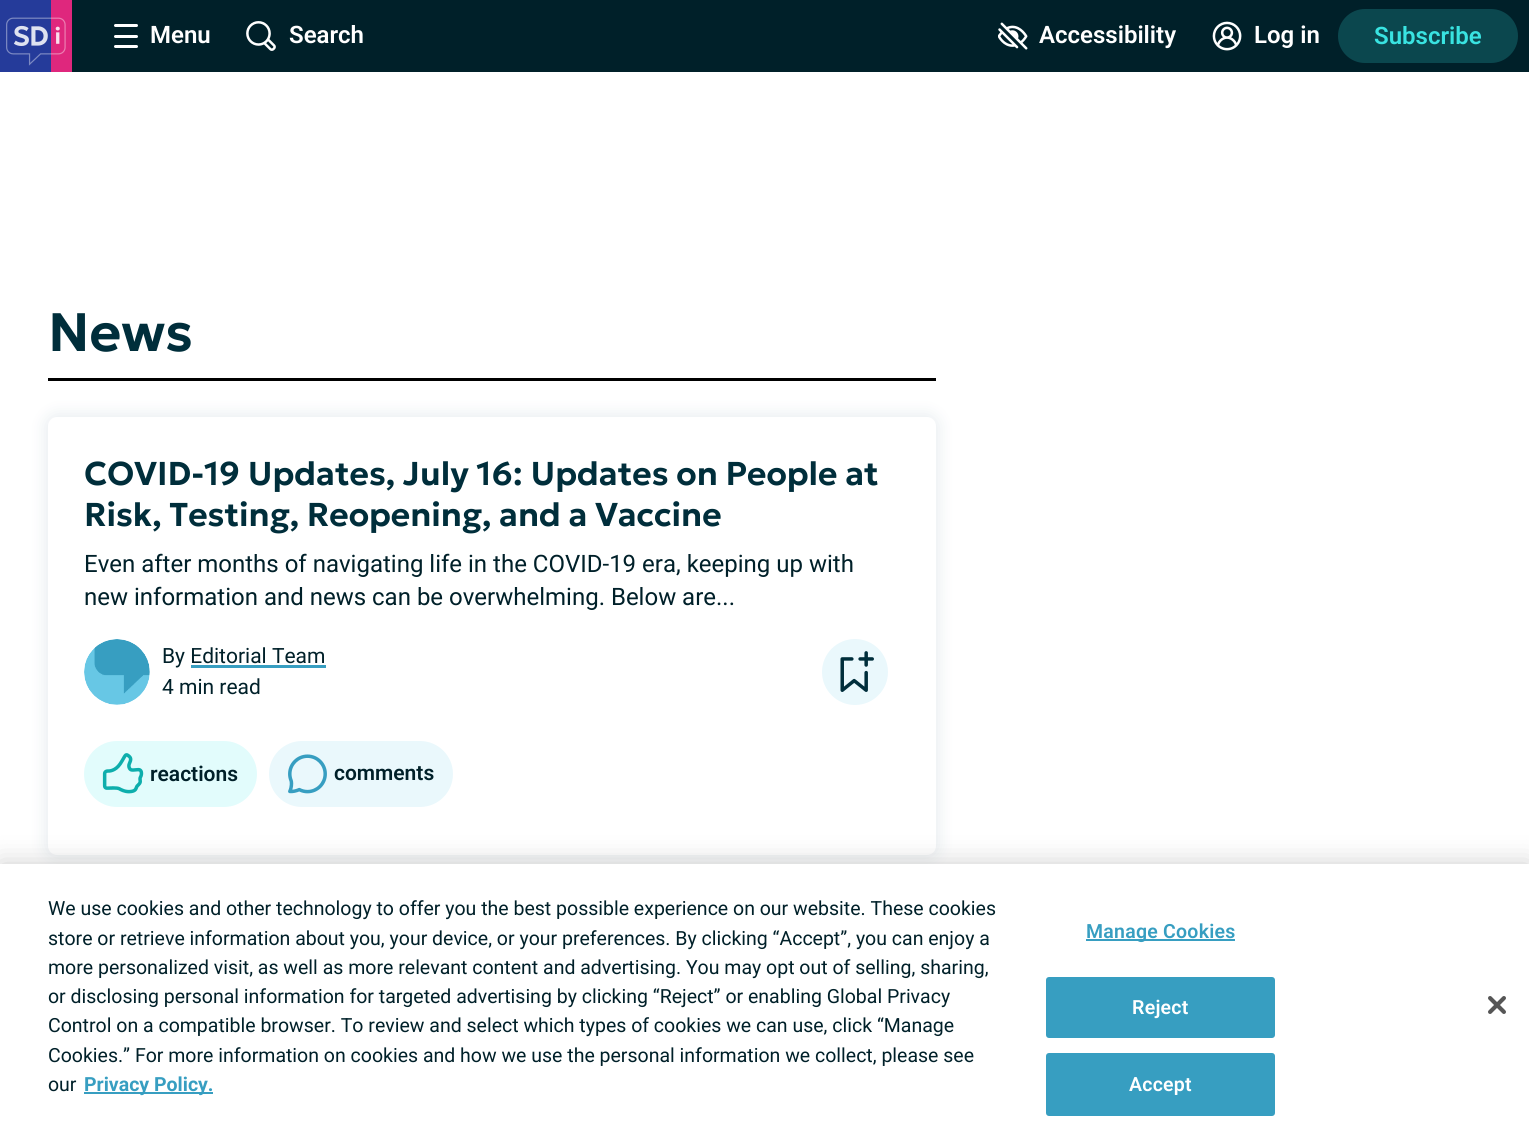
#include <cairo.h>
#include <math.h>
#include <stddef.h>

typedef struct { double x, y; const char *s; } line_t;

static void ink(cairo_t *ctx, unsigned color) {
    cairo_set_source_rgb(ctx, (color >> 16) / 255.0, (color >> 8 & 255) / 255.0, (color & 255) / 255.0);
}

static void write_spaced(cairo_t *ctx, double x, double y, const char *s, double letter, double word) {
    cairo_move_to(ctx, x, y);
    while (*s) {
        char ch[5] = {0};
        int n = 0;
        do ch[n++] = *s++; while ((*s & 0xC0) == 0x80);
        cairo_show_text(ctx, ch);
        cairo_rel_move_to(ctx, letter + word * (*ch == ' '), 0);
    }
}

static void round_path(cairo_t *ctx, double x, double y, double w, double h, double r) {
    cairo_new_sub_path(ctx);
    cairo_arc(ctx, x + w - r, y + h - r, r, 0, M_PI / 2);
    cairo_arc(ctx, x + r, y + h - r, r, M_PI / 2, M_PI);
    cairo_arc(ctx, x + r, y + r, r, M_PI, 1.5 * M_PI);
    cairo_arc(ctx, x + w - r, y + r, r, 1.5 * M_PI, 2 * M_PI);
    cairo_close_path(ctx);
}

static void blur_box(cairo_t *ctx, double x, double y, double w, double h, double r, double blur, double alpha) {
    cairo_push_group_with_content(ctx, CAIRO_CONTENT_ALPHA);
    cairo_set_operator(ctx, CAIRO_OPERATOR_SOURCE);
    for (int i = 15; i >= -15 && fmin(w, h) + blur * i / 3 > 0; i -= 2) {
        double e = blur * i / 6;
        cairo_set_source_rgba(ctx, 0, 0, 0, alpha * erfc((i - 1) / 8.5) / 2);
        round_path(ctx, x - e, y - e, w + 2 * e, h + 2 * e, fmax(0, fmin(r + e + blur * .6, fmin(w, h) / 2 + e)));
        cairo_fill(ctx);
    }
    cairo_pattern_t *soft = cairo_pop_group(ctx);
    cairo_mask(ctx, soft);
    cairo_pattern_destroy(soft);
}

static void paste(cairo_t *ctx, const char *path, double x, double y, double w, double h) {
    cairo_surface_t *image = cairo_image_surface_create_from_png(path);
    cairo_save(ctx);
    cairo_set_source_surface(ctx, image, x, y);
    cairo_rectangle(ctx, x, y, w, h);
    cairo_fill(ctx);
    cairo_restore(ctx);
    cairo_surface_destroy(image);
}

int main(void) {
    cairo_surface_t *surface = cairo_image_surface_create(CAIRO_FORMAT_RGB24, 1529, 1145);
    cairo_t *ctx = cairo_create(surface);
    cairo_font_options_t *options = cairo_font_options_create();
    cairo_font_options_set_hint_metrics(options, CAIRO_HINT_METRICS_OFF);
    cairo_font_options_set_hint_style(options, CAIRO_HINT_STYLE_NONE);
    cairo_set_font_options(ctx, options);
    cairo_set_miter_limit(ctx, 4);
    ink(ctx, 0xFFFFFF);
    cairo_paint(ctx);
    ink(ctx, 0x002029);
    cairo_rectangle(ctx, 72, 0, 1457, 72);
    cairo_fill(ctx);
    paste(ctx, "media/1.png", 0, 0, 72, 72);
    ink(ctx, 0xFFFFFF);
    round_path(ctx, 114, 24, 24, 3, 1.5);
    cairo_fill(ctx);
    round_path(ctx, 114, 35, 24, 3, 1.5);
    cairo_fill(ctx);
    round_path(ctx, 114, 45, 24, 3, 1.5);
    cairo_fill(ctx);
    cairo_select_font_face(ctx, "Roboto SemiBold", CAIRO_FONT_SLANT_NORMAL, CAIRO_FONT_WEIGHT_NORMAL);
    cairo_set_font_size(ctx, 24);
    cairo_move_to(ctx, 150, 43);
    cairo_show_text(ctx, "Menu");
    paste(ctx, "media/2.png", 246, 21, 30, 30);
    cairo_move_to(ctx, 289, 43);
    cairo_show_text(ctx, "Search");
    paste(ctx, "media/3.png", 998, 22, 30, 28);
    cairo_move_to(ctx, 1039, 43);
    cairo_show_text(ctx, "Accessibility");
    paste(ctx, "media/4.png", 1212, 21, 30, 30);
    cairo_move_to(ctx, 1254, 43);
    cairo_show_text(ctx, "Log in");
    ink(ctx, 0x0B474E);
    round_path(ctx, 1338, 9, 180, 54, 27);
    cairo_fill(ctx);
    ink(ctx, 0x39E3E1);
    cairo_move_to(ctx, 1374, 44);
    cairo_show_text(ctx, "Subscribe");
    ink(ctx, 0x000000);
    cairo_rectangle(ctx, 48, 378, 888, 3);
    cairo_fill(ctx);
    cairo_select_font_face(ctx, "Geologica SemiBold", CAIRO_FONT_SLANT_NORMAL, CAIRO_FONT_WEIGHT_NORMAL);
    cairo_set_font_size(ctx, 54);
    ink(ctx, 0x002E3B);
    cairo_move_to(ctx, 48, 351);
    cairo_show_text(ctx, "News");
    ink(ctx, 0xB3C4CD);
    blur_box(ctx, 45, 414, 894, 444, 12, 7.5, 0.3);
    ink(ctx, 0xFFFFFF);
    round_path(ctx, 48, 417, 888, 438, 9);
    cairo_fill(ctx);
    cairo_set_font_size(ctx, 33);
    ink(ctx, 0x002E3B);
    cairo_move_to(ctx, 84, 485);
    cairo_show_text(ctx, "COVID-19 Updates, July 16: Updates on People at");
    cairo_move_to(ctx, 84, 526);
    cairo_show_text(ctx, "Risk, Testing, Reopening, and a Vaccine");
    cairo_select_font_face(ctx, "Roboto", CAIRO_FONT_SLANT_NORMAL, CAIRO_FONT_WEIGHT_NORMAL);
    cairo_set_font_size(ctx, 24);
    ink(ctx, 0x002029);
    cairo_move_to(ctx, 84, 572);
    cairo_show_text(ctx, "Even after months of navigating life in the COVID-19 era, keeping up with");
    cairo_move_to(ctx, 84, 605);
    cairo_show_text(ctx, "new information and news can be overwhelming. Below are...");
    paste(ctx, "media/5.png", 84, 639, 66, 66);
    cairo_set_font_size(ctx, 21);
    cairo_move_to(ctx, 162, 663);
    cairo_show_text(ctx, "By Editorial Team");
    ink(ctx, 0x379EC1);
    cairo_rectangle(ctx, 191, 665, 135, 3);
    cairo_fill(ctx);
    ink(ctx, 0x002029);
    cairo_move_to(ctx, 162, 694);
    cairo_show_text(ctx, "4 min read");
    ink(ctx, 0xEAF8FC);
    cairo_new_path(ctx);
    cairo_arc(ctx, 855, 672, 33, 0, 2 * M_PI);
    cairo_fill(ctx);
    paste(ctx, "media/6.png", 840, 651, 34, 41);
    ink(ctx, 0xE2FCFC);
    round_path(ctx, 84, 741, 173, 66, 33);
    cairo_fill(ctx);
    paste(ctx, "media/7.png", 102, 753, 42, 41);
    cairo_select_font_face(ctx, "Roboto SemiBold", CAIRO_FONT_SLANT_NORMAL, CAIRO_FONT_WEIGHT_NORMAL);
    ink(ctx, 0x002029);
    cairo_move_to(ctx, 150, 781);
    cairo_show_text(ctx, "reactions");
    ink(ctx, 0xEAF8FC);
    round_path(ctx, 269, 741, 184, 66, 33);
    cairo_fill(ctx);
    paste(ctx, "media/8.png", 288, 754, 39, 40);
    ink(ctx, 0x002029);
    cairo_move_to(ctx, 334, 780);
    cairo_show_text(ctx, "comments");
    ink(ctx, 0x000000);
    blur_box(ctx, 0, 864, 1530, 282, 0, 13.5, 0.2);
    ink(ctx, 0xFFFFFF);
    cairo_rectangle(ctx, 0, 864, 1529, 281);
    cairo_fill(ctx);
    cairo_select_font_face(ctx, "Roboto", CAIRO_FONT_SLANT_NORMAL, CAIRO_FONT_WEIGHT_NORMAL);
    cairo_set_font_size(ctx, 19.5);
    ink(ctx, 0x002029);
    {
        static const line_t items[] = {
            {48, 915, "We use cookies and other technology to offer you the best possible experience on our website. These cookies"},
            {48, 945, "store or retrieve information about you, your device, or your preferences. By clicking “Accept”, you can enjoy a"},
            {48, 974, "more personalized visit, as well as more relevant content and advertising. You may opt out of selling, sharing,"},
            {48, 1003, "or disclosing personal information for targeted advertising by clicking “Reject” or enabling Global Privacy"},
            {48, 1032, "Control on a compatible browser. To review and select which types of cookies we can use, click “Manage"},
            {48, 1062, "Cookies.” For more information on cookies and how we use the personal information we collect, please see"},
            {48, 1091, "our"},
        };
        for (size_t i = 0; i < sizeof items / sizeof *items; i++) {
            cairo_move_to(ctx, items[i].x, items[i].y);
            cairo_show_text(ctx, items[i].s);
        }
    }
    ink(ctx, 0x379EC1);
    cairo_rectangle(ctx, 84, 1092, 129, 2);
    cairo_fill(ctx);
    cairo_select_font_face(ctx, "Roboto", CAIRO_FONT_SLANT_NORMAL, CAIRO_FONT_WEIGHT_BOLD);
    cairo_move_to(ctx, 84, 1091);
    cairo_show_text(ctx, "Privacy Policy.");
    cairo_rectangle(ctx, 1086, 939, 149, 2);
    cairo_fill(ctx);
    cairo_select_font_face(ctx, "Roboto SemiBold", CAIRO_FONT_SLANT_NORMAL, CAIRO_FONT_WEIGHT_NORMAL);
    write_spaced(ctx, 1086, 938, "Manage Cookies", 0.25, 0);
    round_path(ctx, 1047, 978, 227, 59, 2);
    cairo_fill_preserve(ctx);
    cairo_stroke(ctx);
    ink(ctx, 0xFFFFFF);
    write_spaced(ctx, 1132, 1014, "Reject", 0.25, 0);
    ink(ctx, 0x379EC1);
    round_path(ctx, 1047, 1054, 227, 61, 2);
    cairo_fill_preserve(ctx);
    cairo_stroke(ctx);
    ink(ctx, 0xFFFFFF);
    write_spaced(ctx, 1129, 1091, "Accept", 0.25, 0);
    paste(ctx, "media/9.png", 1488, 996, 18, 18);
    cairo_surface_write_to_png(surface, "image.png");
    cairo_font_options_destroy(options);
    cairo_destroy(ctx);
    cairo_surface_destroy(surface);
    return 0;
}
